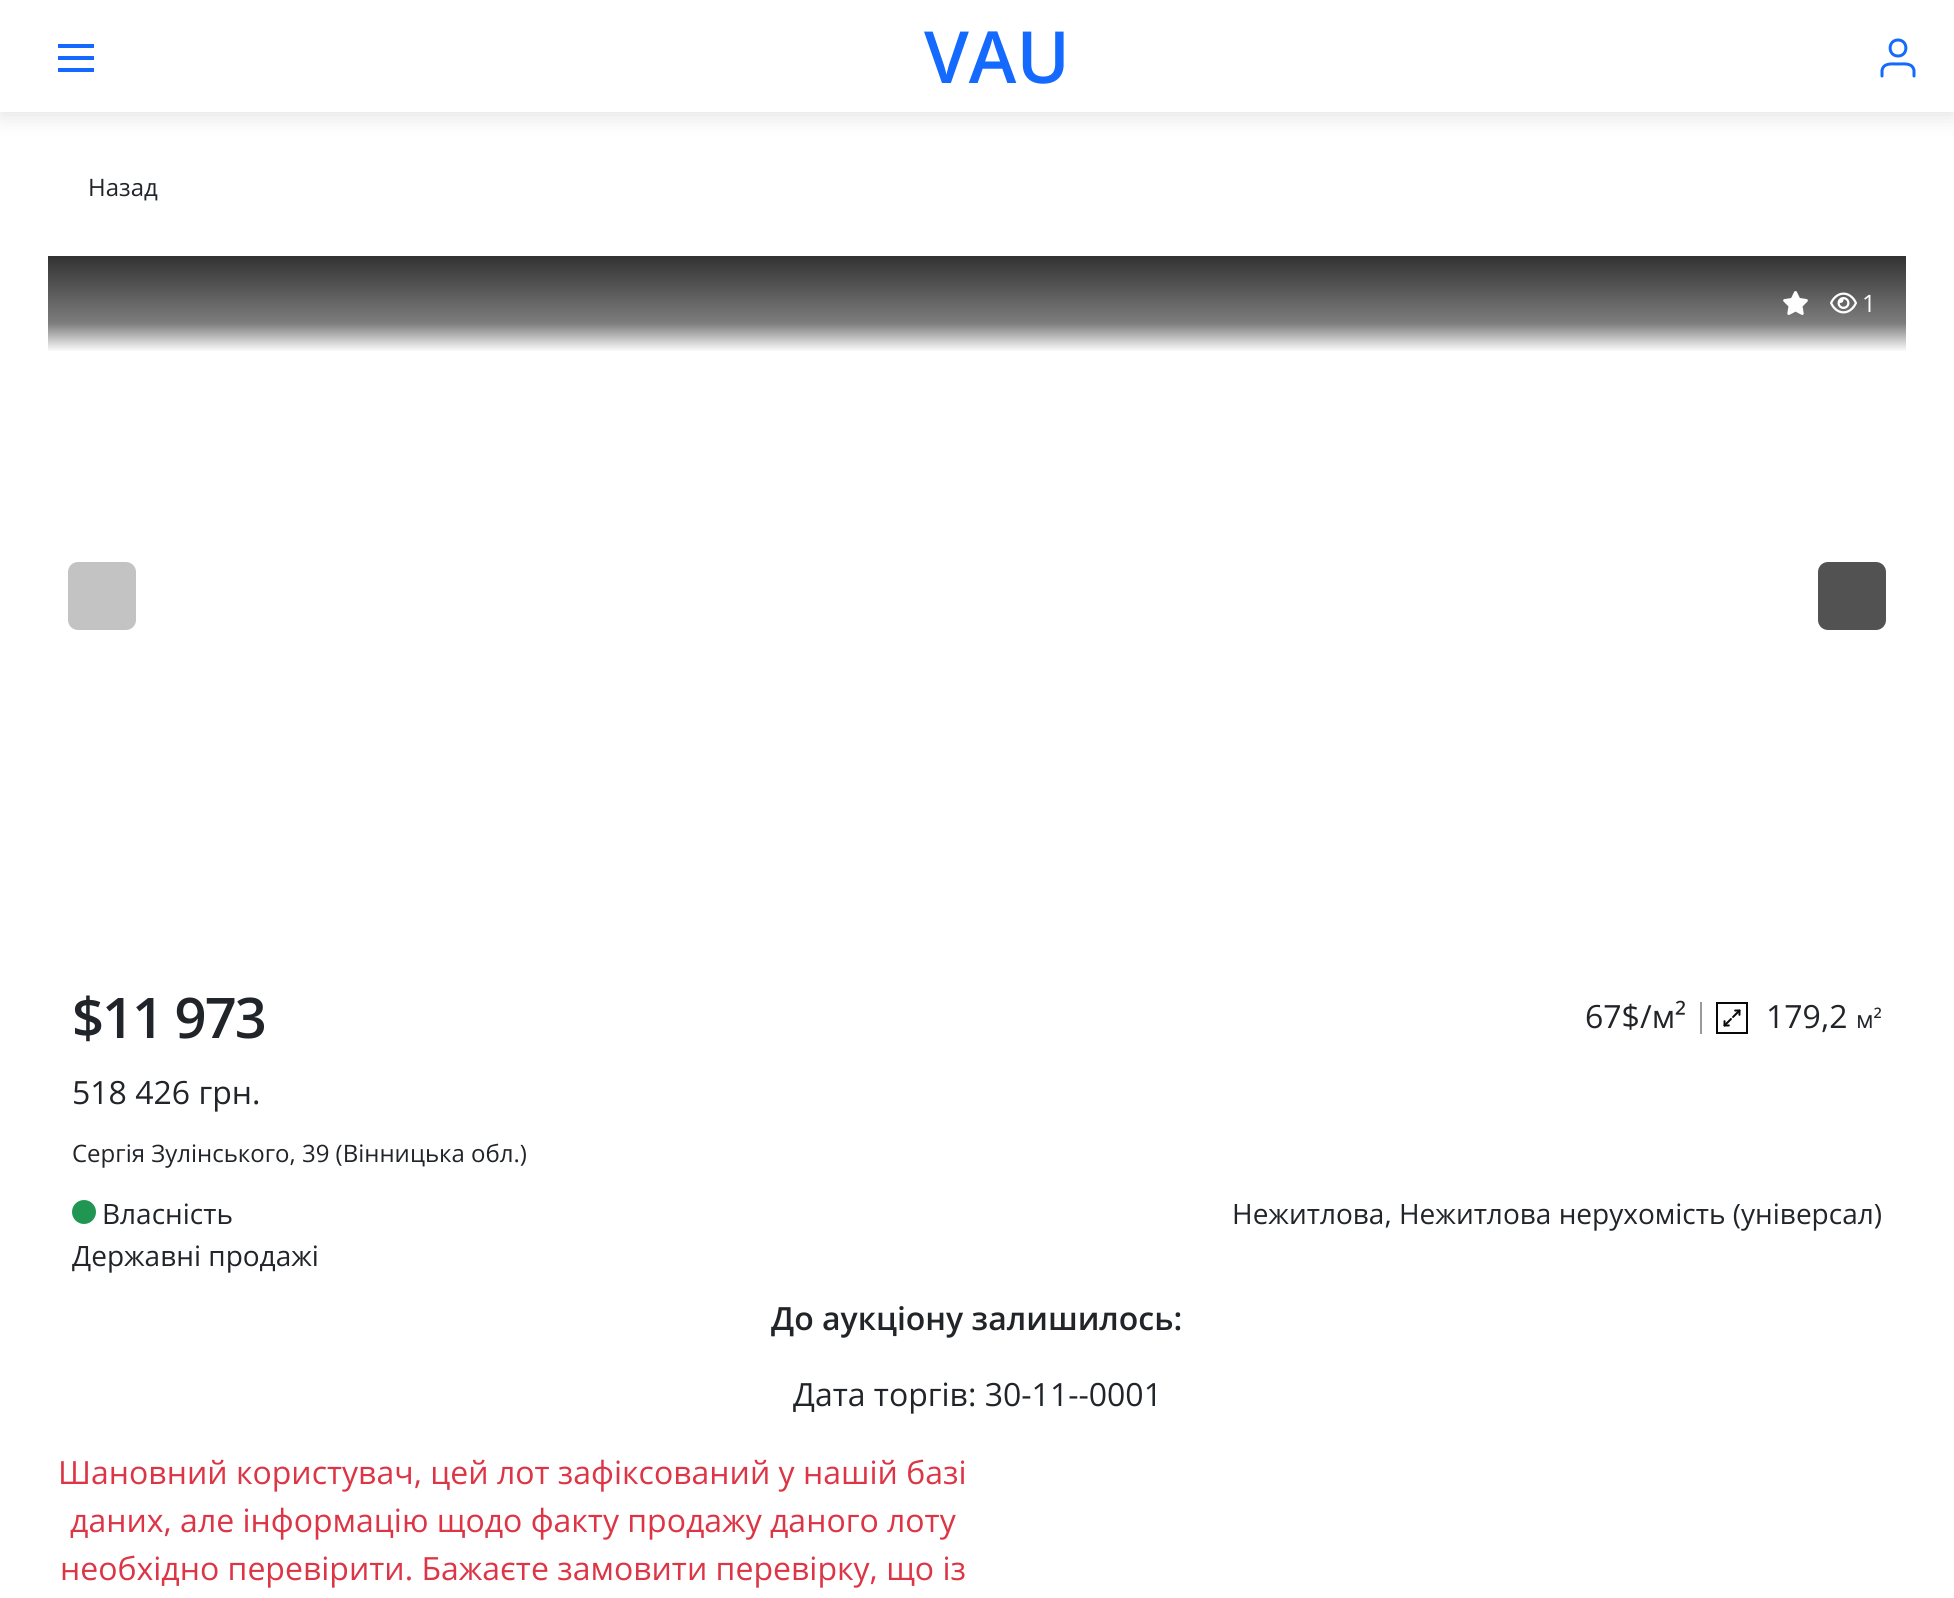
#include <cairo.h>
#include <math.h>
#include <stddef.h>

typedef struct { double x, y; const char *s; } line_t;
typedef struct { double x, y, w, h; unsigned color; } box_t;

static void ink(cairo_t *ctx, unsigned color) {
    cairo_set_source_rgb(ctx, (color >> 16) / 255.0, (color >> 8 & 255) / 255.0, (color & 255) / 255.0);
}

static void write_spaced(cairo_t *ctx, double x, double y, const char *s, double letter, double word) {
    cairo_move_to(ctx, x, y);
    while (*s) {
        char ch[5] = {0};
        int n = 0;
        do ch[n++] = *s++; while ((*s & 0xC0) == 0x80);
        cairo_show_text(ctx, ch);
        cairo_rel_move_to(ctx, letter + word * (*ch == ' '), 0);
    }
}

static void round_path(cairo_t *ctx, double x, double y, double w, double h, double r) {
    cairo_new_sub_path(ctx);
    cairo_arc(ctx, x + w - r, y + h - r, r, 0, M_PI / 2);
    cairo_arc(ctx, x + r, y + h - r, r, M_PI / 2, M_PI);
    cairo_arc(ctx, x + r, y + r, r, M_PI, 1.5 * M_PI);
    cairo_arc(ctx, x + w - r, y + r, r, 1.5 * M_PI, 2 * M_PI);
    cairo_close_path(ctx);
}

static void blur_box(cairo_t *ctx, double x, double y, double w, double h, double r, double blur, double alpha) {
    cairo_push_group_with_content(ctx, CAIRO_CONTENT_ALPHA);
    cairo_set_operator(ctx, CAIRO_OPERATOR_SOURCE);
    for (int i = 15; i >= -15 && fmin(w, h) + blur * i / 3 > 0; i -= 2) {
        double e = blur * i / 6;
        cairo_set_source_rgba(ctx, 0, 0, 0, alpha * erfc((i - 1) / 8.5) / 2);
        round_path(ctx, x - e, y - e, w + 2 * e, h + 2 * e, fmax(0, fmin(r + e + blur * .6, fmin(w, h) / 2 + e)));
        cairo_fill(ctx);
    }
    cairo_pattern_t *soft = cairo_pop_group(ctx);
    cairo_mask(ctx, soft);
    cairo_pattern_destroy(soft);
}

static void paste(cairo_t *ctx, const char *path, double x, double y, double w, double h) {
    cairo_surface_t *image = cairo_image_surface_create_from_png(path);
    cairo_save(ctx);
    cairo_set_source_surface(ctx, image, x, y);
    cairo_rectangle(ctx, x, y, w, h);
    cairo_fill(ctx);
    cairo_restore(ctx);
    cairo_surface_destroy(image);
}

int main(void) {
    cairo_surface_t *surface = cairo_image_surface_create(CAIRO_FORMAT_RGB24, 1954, 1598);
    cairo_t *ctx = cairo_create(surface);
    cairo_font_options_t *options = cairo_font_options_create();
    cairo_font_options_set_hint_metrics(options, CAIRO_HINT_METRICS_OFF);
    cairo_font_options_set_hint_style(options, CAIRO_HINT_STYLE_NONE);
    cairo_set_font_options(ctx, options);
    cairo_set_miter_limit(ctx, 4);
    cairo_pattern_t *gradient;
    ink(ctx, 0xFFFFFF);
    cairo_paint(ctx);
    ink(ctx, 0x000000);
    blur_box(ctx, 0, 6, 1954, 112, 0, 10, 0.1);
    {
        static const box_t items[] = {
            {0, 0, 1954, 112, 0xFFFFFF},
            {58, 44, 36, 4, 0x146AFF},
            {58, 56, 36, 4, 0x146AFF},
            {58, 68, 36, 4, 0x146AFF},
        };
        for (size_t i = 0; i < sizeof items / sizeof *items; i++) {
            ink(ctx, items[i].color);
            cairo_rectangle(ctx, items[i].x, items[i].y, items[i].w, items[i].h);
            cairo_fill(ctx);
        }
    }
    cairo_select_font_face(ctx, "Open Sans SemiBold", CAIRO_FONT_SLANT_NORMAL, CAIRO_FONT_WEIGHT_NORMAL);
    cairo_set_font_size(ctx, 72);
    cairo_move_to(ctx, 924, 83);
    cairo_show_text(ctx, "VAU");
    cairo_new_path(ctx);
    cairo_move_to(ctx, 1914, 76);
    cairo_line_to(ctx, 1914, 70.5);
    cairo_curve_to(ctx, 1912.5, 62.5, 1904, 64, 1898, 64);
    cairo_curve_to(ctx, 1892, 64, 1883.5, 62.5, 1882, 70.5);
    cairo_line_to(ctx, 1882, 76);
    cairo_move_to(ctx, 1898, 56);
    cairo_curve_to(ctx, 1908.5, 56, 1908.5, 40, 1898, 40);
    cairo_curve_to(ctx, 1887.5, 40, 1887.5, 56, 1898, 56);
    cairo_close_path(ctx);
    cairo_set_line_width(ctx, 3);
    cairo_set_line_cap(ctx, CAIRO_LINE_CAP_ROUND);
    cairo_set_line_join(ctx, CAIRO_LINE_JOIN_ROUND);
    cairo_stroke(ctx);
    cairo_select_font_face(ctx, "Open Sans", CAIRO_FONT_SLANT_NORMAL, CAIRO_FONT_WEIGHT_NORMAL);
    cairo_set_font_size(ctx, 24);
    ink(ctx, 0x212529);
    cairo_move_to(ctx, 88, 196);
    cairo_show_text(ctx, "Назад");
    gradient = cairo_pattern_create_linear(977, 256, 977, 352);
    cairo_pattern_add_color_stop_rgba(gradient, 0, 0.196, 0.196, 0.196, 1);
    cairo_pattern_add_color_stop_rgba(gradient, 0.7, 0.49, 0.49, 0.49, 1);
    cairo_pattern_add_color_stop_rgba(gradient, 1, 1, 1, 1, 1);
    cairo_set_source(ctx, gradient);
    cairo_pattern_destroy(gradient);
    cairo_rectangle(ctx, 48, 256, 1858, 95);
    cairo_fill(ctx);
    paste(ctx, "media/1.png", 1783, 291, 25, 24);
    paste(ctx, "media/2.png", 1830, 292, 27, 22);
    ink(ctx, 0xFFFFFF);
    cairo_move_to(ctx, 1862, 312);
    cairo_show_text(ctx, "1");
    ink(ctx, 0xC3C3C3);
    round_path(ctx, 68, 562, 68, 68, 10);
    cairo_fill(ctx);
    ink(ctx, 0x525252);
    round_path(ctx, 1818, 562, 68, 68, 10);
    cairo_fill(ctx);
    cairo_select_font_face(ctx, "Open Sans SemiBold", CAIRO_FONT_SLANT_NORMAL, CAIRO_FONT_WEIGHT_NORMAL);
    cairo_set_font_size(ctx, 56);
    ink(ctx, 0x212529);
    write_spaced(ctx, 72, 1038, "$11 973", -2, 0);
    cairo_select_font_face(ctx, "Open Sans", CAIRO_FONT_SLANT_NORMAL, CAIRO_FONT_WEIGHT_NORMAL);
    cairo_set_font_size(ctx, 32);
    cairo_move_to(ctx, 1585, 1028);
    cairo_show_text(ctx, "67$/м²");
    ink(ctx, 0x999999);
    cairo_rectangle(ctx, 1700, 1002, 2, 32);
    cairo_fill(ctx);
    paste(ctx, "media/3.png", 1716, 1002, 32, 32);
    ink(ctx, 0x212529);
    cairo_move_to(ctx, 1766, 1028);
    cairo_show_text(ctx, "179,2");
    cairo_set_font_size(ctx, 24);
    cairo_move_to(ctx, 1856, 1028);
    cairo_show_text(ctx, "м²");
    cairo_set_font_size(ctx, 32);
    cairo_move_to(ctx, 72, 1104);
    cairo_show_text(ctx, "518 426 грн.");
    cairo_set_font_size(ctx, 24);
    cairo_move_to(ctx, 72, 1162);
    cairo_show_text(ctx, "Сергія Зулінського, 39 (Вінницька обл.)");
    ink(ctx, 0x219653);
    cairo_new_path(ctx);
    cairo_arc(ctx, 84, 1212, 12, 0, 2 * M_PI);
    cairo_fill(ctx);
    cairo_set_font_size(ctx, 28);
    ink(ctx, 0x212529);
    {
        static const line_t items[] = {
            {102, 1224, "Власність"},
            {72, 1266, "Державні продажі"},
            {1232, 1224, "Нежитлова, Нежитлова нерухомість (універсал)"},
        };
        for (size_t i = 0; i < sizeof items / sizeof *items; i++) {
            cairo_move_to(ctx, items[i].x, items[i].y);
            cairo_show_text(ctx, items[i].s);
        }
    }
    cairo_select_font_face(ctx, "Open Sans SemiBold", CAIRO_FONT_SLANT_NORMAL, CAIRO_FONT_WEIGHT_NORMAL);
    cairo_set_font_size(ctx, 32);
    cairo_move_to(ctx, 771, 1330);
    cairo_show_text(ctx, "До аукціону залишилось:");
    cairo_select_font_face(ctx, "Open Sans", CAIRO_FONT_SLANT_NORMAL, CAIRO_FONT_WEIGHT_NORMAL);
    cairo_move_to(ctx, 793, 1406);
    cairo_show_text(ctx, "Дата торгів: 30-11--0001");
    ink(ctx, 0xDC3545);
    {
        static const line_t items[] = {
            {58, 1484, "Шановний користувач, цей лот зафіксований у нашій базі"},
            {70, 1532, "даних, але інформацію щодо факту продажу даного лоту"},
            {60, 1580, "необхідно перевірити. Бажаєте замовити перевірку, що із"},
        };
        for (size_t i = 0; i < sizeof items / sizeof *items; i++) {
            cairo_move_to(ctx, items[i].x, items[i].y);
            cairo_show_text(ctx, items[i].s);
        }
    }
    cairo_surface_write_to_png(surface, "image.png");
    cairo_font_options_destroy(options);
    cairo_destroy(ctx);
    cairo_surface_destroy(surface);
    return 0;
}
